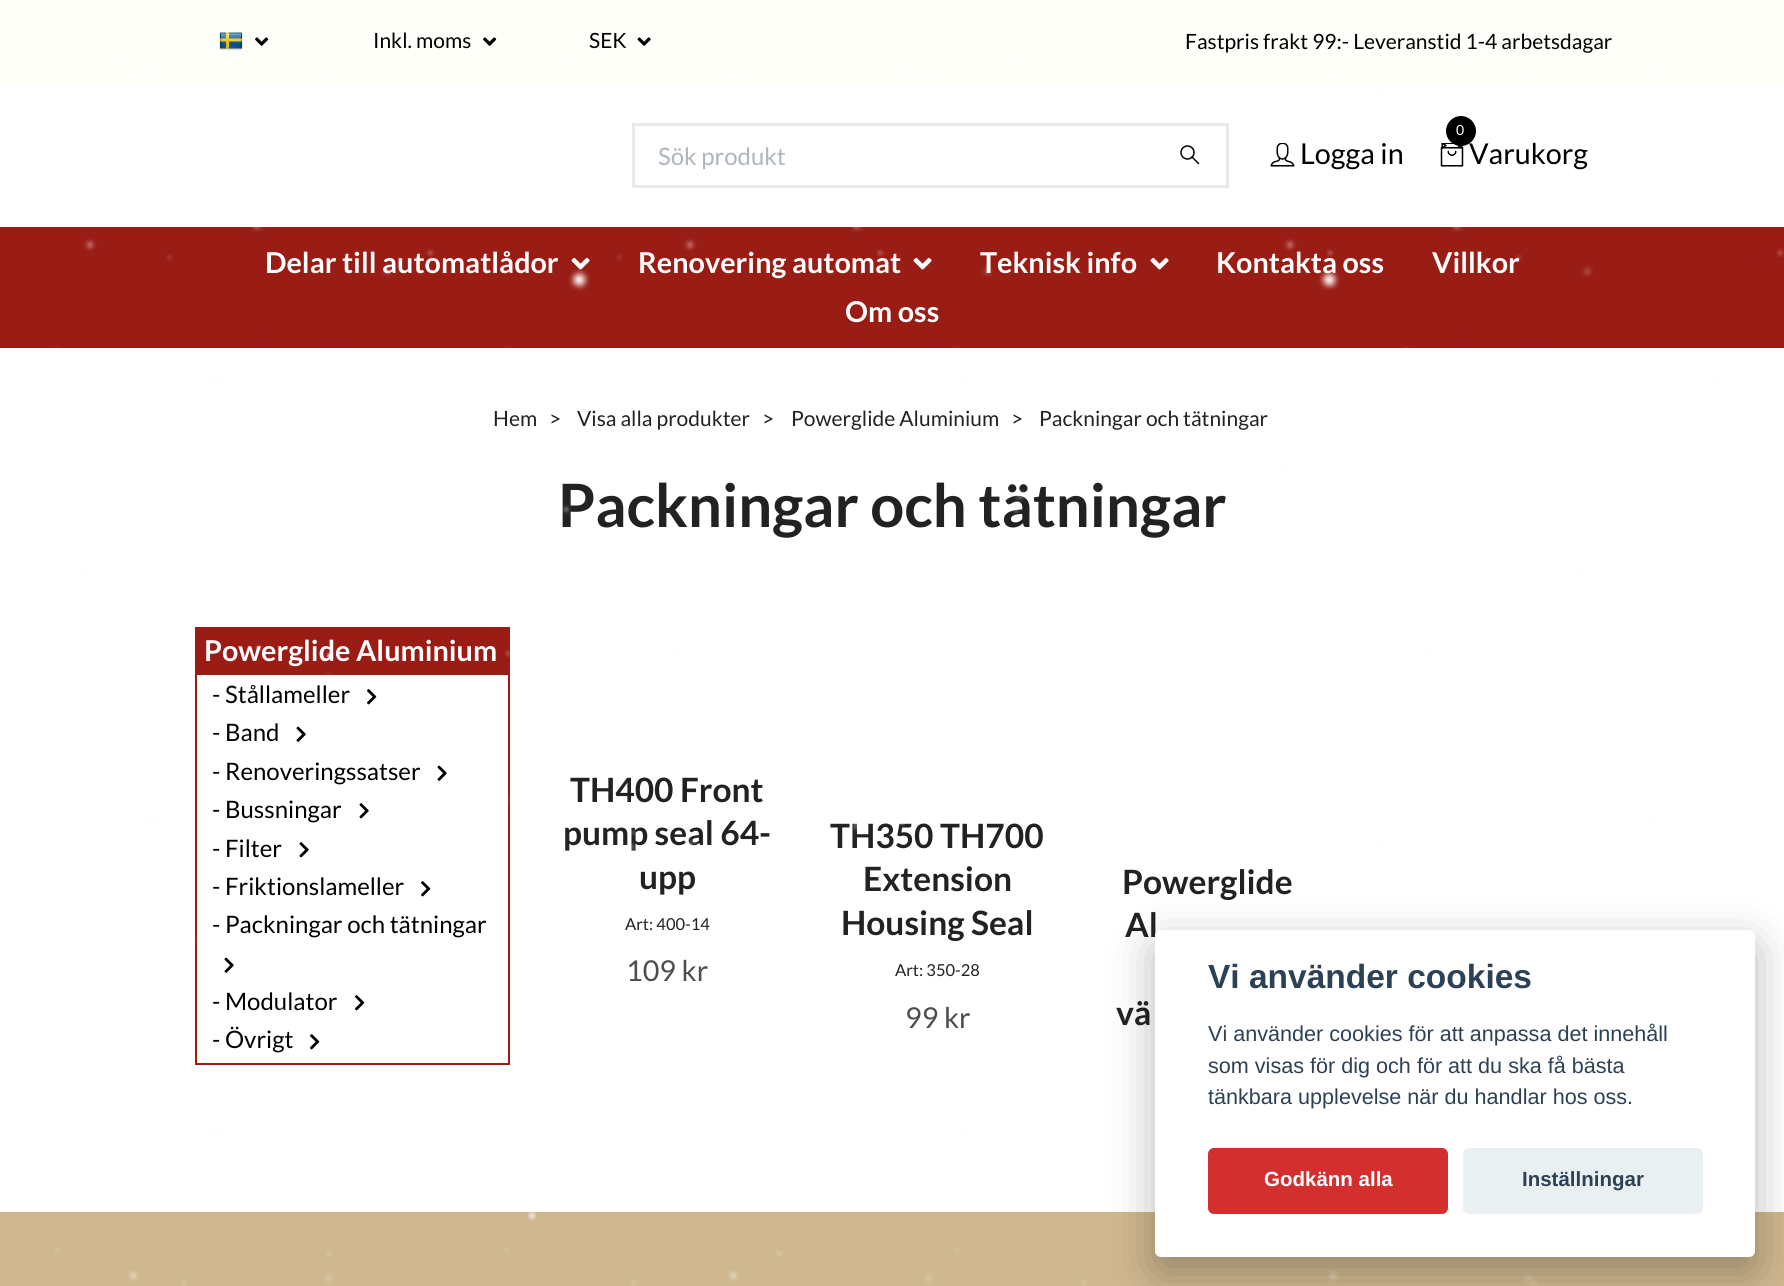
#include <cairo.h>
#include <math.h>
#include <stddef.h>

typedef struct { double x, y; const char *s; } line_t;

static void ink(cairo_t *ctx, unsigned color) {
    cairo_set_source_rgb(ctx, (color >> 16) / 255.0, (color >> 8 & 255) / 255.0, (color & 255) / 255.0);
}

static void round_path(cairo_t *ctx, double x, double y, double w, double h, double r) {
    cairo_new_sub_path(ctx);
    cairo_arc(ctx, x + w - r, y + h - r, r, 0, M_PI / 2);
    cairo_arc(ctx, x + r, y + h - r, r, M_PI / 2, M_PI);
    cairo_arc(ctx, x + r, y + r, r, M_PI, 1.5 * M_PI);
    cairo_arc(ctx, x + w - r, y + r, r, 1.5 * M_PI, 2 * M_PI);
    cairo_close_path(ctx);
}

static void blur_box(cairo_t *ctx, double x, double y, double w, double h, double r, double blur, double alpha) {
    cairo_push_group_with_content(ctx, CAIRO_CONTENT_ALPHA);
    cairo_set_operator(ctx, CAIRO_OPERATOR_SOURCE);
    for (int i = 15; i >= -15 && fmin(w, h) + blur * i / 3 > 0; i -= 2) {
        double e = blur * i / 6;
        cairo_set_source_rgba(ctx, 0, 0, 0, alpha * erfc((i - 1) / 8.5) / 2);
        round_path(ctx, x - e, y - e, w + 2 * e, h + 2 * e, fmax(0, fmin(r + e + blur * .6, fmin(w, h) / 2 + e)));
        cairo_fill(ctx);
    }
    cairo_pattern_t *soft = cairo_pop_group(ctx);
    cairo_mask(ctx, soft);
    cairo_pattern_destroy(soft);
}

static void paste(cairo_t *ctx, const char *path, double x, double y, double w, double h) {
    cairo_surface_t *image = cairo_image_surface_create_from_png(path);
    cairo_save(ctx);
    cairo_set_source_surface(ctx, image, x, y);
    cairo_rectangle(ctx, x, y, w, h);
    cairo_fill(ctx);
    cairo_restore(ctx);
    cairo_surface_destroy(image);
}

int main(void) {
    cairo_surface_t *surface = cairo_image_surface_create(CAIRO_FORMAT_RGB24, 1784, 1286);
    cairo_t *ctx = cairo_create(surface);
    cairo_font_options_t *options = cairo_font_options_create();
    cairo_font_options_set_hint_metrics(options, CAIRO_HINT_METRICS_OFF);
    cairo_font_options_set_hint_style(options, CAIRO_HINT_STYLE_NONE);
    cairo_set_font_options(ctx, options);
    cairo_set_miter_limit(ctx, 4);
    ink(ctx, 0xFFFFFF);
    cairo_paint(ctx);
    ink(ctx, 0xFFFFFA);
    cairo_rectangle(ctx, 0, 0, 1784, 84);
    cairo_fill(ctx);
    paste(ctx, "media/1.png", 219, 32, 24, 19);
    paste(ctx, "media/2.png", 255, 37, 14, 9);
    cairo_select_font_face(ctx, "Lato", CAIRO_FONT_SLANT_NORMAL, CAIRO_FONT_WEIGHT_NORMAL);
    cairo_set_font_size(ctx, 21);
    ink(ctx, 0x000000);
    cairo_move_to(ctx, 373, 48);
    cairo_show_text(ctx, "Inkl. moms");
    paste(ctx, "media/2.png", 483, 37, 14, 9);
    cairo_move_to(ctx, 589, 48);
    cairo_show_text(ctx, "SEK");
    paste(ctx, "media/3.png", 637, 37, 14, 9);
    cairo_move_to(ctx, 1185, 49);
    cairo_show_text(ctx, "Fastpris frakt 99:- Leveranstid 1-4 arbetsdagar");
    cairo_rectangle(ctx, 633.5, 124.5, 594, 62);
    ink(ctx, 0xE9E9E9);
    cairo_set_line_width(ctx, 3);
    cairo_stroke(ctx);
    cairo_set_font_size(ctx, 24);
    ink(ctx, 0xADB5BD);
    cairo_move_to(ctx, 658, 165);
    cairo_show_text(ctx, "Sök produkt");
    cairo_new_path(ctx);
    cairo_move_to(ctx, 1192, 157);
    cairo_line_to(ctx, 1198.5, 163.5);
    ink(ctx, 0x000000);
    cairo_set_line_width(ctx, 1.5);
    cairo_set_line_cap(ctx, CAIRO_LINE_CAP_ROUND);
    cairo_set_line_join(ctx, CAIRO_LINE_JOIN_ROUND);
    cairo_stroke(ctx);
    cairo_arc(ctx, 1187.5, 152.5, 6.5, 0, 2 * M_PI);
    cairo_set_line_cap(ctx, CAIRO_LINE_CAP_BUTT);
    cairo_set_line_join(ctx, CAIRO_LINE_JOIN_MITER);
    cairo_stroke(ctx);
    paste(ctx, "media/4.png", 1270, 143, 25, 24);
    cairo_set_font_size(ctx, 28.75);
    cairo_move_to(ctx, 1300, 164);
    cairo_show_text(ctx, "Logga in");
    paste(ctx, "media/5.png", 1440, 143, 24, 24);
    cairo_arc(ctx, 1461, 131, 15, 0, 2 * M_PI);
    cairo_fill(ctx);
    cairo_set_font_size(ctx, 14);
    ink(ctx, 0xFFFFFF);
    cairo_move_to(ctx, 1456, 135);
    cairo_show_text(ctx, "0");
    cairo_set_font_size(ctx, 28.75);
    ink(ctx, 0x000000);
    cairo_move_to(ctx, 1469, 164);
    cairo_show_text(ctx, "Varukorg");
    ink(ctx, 0x991C15);
    cairo_rectangle(ctx, 0, 227, 1784, 121);
    cairo_fill(ctx);
    cairo_select_font_face(ctx, "Lato", CAIRO_FONT_SLANT_NORMAL, CAIRO_FONT_WEIGHT_BOLD);
    ink(ctx, 0xFFFFFF);
    cairo_move_to(ctx, 265, 273);
    cairo_show_text(ctx, "Delar till automatlådor");
    paste(ctx, "media/6.png", 571, 257, 19, 13);
    cairo_move_to(ctx, 638, 273);
    cairo_show_text(ctx, "Renovering automat");
    paste(ctx, "media/6.png", 913, 257, 19, 13);
    cairo_move_to(ctx, 980, 273);
    cairo_show_text(ctx, "Teknisk info");
    paste(ctx, "media/6.png", 1150, 257, 19, 13);
    {
        static const line_t items[] = {
            {1216, 273, "Kontakta oss"},
            {1432, 273, "Villkor"},
            {845, 322, "Om oss"},
        };
        for (size_t i = 0; i < sizeof items / sizeof *items; i++) {
            cairo_move_to(ctx, items[i].x, items[i].y);
            cairo_show_text(ctx, items[i].s);
        }
    }
    cairo_select_font_face(ctx, "Lato", CAIRO_FONT_SLANT_NORMAL, CAIRO_FONT_WEIGHT_NORMAL);
    cairo_set_font_size(ctx, 21);
    ink(ctx, 0x222222);
    {
        static const line_t items[] = {
            {493, 426, "Hem"},
            {549, 426, ">"},
            {577, 426, "Visa alla produkter"},
            {762, 426, ">"},
            {791, 426, "Powerglide Aluminium"},
            {1011, 426, ">"},
            {1039, 426, "Packningar och tätningar"},
        };
        for (size_t i = 0; i < sizeof items / sizeof *items; i++) {
            cairo_move_to(ctx, items[i].x, items[i].y);
            cairo_show_text(ctx, items[i].s);
        }
    }
    cairo_select_font_face(ctx, "Lato", CAIRO_FONT_SLANT_NORMAL, CAIRO_FONT_WEIGHT_BOLD);
    cairo_set_font_size(ctx, 59.75);
    cairo_move_to(ctx, 558, 527);
    cairo_show_text(ctx, "Packningar och tätningar");
    cairo_rectangle(ctx, 196, 628, 313, 436);
    ink(ctx, 0x991C15);
    cairo_set_line_width(ctx, 2);
    cairo_stroke(ctx);
    cairo_rectangle(ctx, 197, 629, 311, 46);
    cairo_fill(ctx);
    cairo_set_font_size(ctx, 28.75);
    ink(ctx, 0xFFFFFF);
    cairo_move_to(ctx, 204, 661);
    cairo_show_text(ctx, "Powerglide Aluminium");
    cairo_select_font_face(ctx, "Lato", CAIRO_FONT_SLANT_NORMAL, CAIRO_FONT_WEIGHT_NORMAL);
    cairo_set_font_size(ctx, 24);
    ink(ctx, 0x000000);
    cairo_move_to(ctx, 212, 703);
    cairo_show_text(ctx, "- Stållameller");
    paste(ctx, "media/8.png", 367, 689, 10, 16);
    cairo_move_to(ctx, 212, 741);
    cairo_show_text(ctx, "- Band");
    paste(ctx, "media/9.png", 296, 726, 10, 16);
    cairo_move_to(ctx, 212, 780);
    cairo_show_text(ctx, "- Renoveringssatser");
    paste(ctx, "media/9.png", 437, 765, 10, 16);
    cairo_move_to(ctx, 212, 818);
    cairo_show_text(ctx, "- Bussningar");
    paste(ctx, "media/10.png", 359, 803, 10, 16);
    cairo_move_to(ctx, 212, 857);
    cairo_show_text(ctx, "- Filter");
    paste(ctx, "media/10.png", 299, 842, 10, 16);
    cairo_move_to(ctx, 212, 895);
    cairo_show_text(ctx, "- Friktionslameller");
    paste(ctx, "media/8.png", 421, 881, 10, 16);
    cairo_move_to(ctx, 212, 933);
    cairo_show_text(ctx, "- Packningar och tätningar");
    paste(ctx, "media/9.png", 224, 957, 10, 16);
    cairo_move_to(ctx, 212, 1010);
    cairo_show_text(ctx, "- Modulator");
    paste(ctx, "media/8.png", 355, 995, 10, 16);
    cairo_move_to(ctx, 212, 1048);
    cairo_show_text(ctx, "- Övrigt");
    paste(ctx, "media/8.png", 310, 1034, 10, 16);
    cairo_select_font_face(ctx, "Lato", CAIRO_FONT_SLANT_NORMAL, CAIRO_FONT_WEIGHT_BOLD);
    cairo_set_font_size(ctx, 33.5);
    ink(ctx, 0x222222);
    {
        static const line_t items[] = {
            {570, 802, "TH400 Front"},
            {563, 845, "pump seal 64-"},
            {639, 889, "upp"},
        };
        for (size_t i = 0; i < sizeof items / sizeof *items; i++) {
            cairo_move_to(ctx, items[i].x, items[i].y);
            cairo_show_text(ctx, items[i].s);
        }
    }
    cairo_select_font_face(ctx, "Lato", CAIRO_FONT_SLANT_NORMAL, CAIRO_FONT_WEIGHT_NORMAL);
    cairo_set_font_size(ctx, 16.5);
    cairo_move_to(ctx, 625, 930);
    cairo_show_text(ctx, "Art: 400-14");
    cairo_set_font_size(ctx, 28.75);
    ink(ctx, 0x4D4D4D);
    cairo_move_to(ctx, 626, 981);
    cairo_show_text(ctx, "109 kr");
    cairo_select_font_face(ctx, "Lato", CAIRO_FONT_SLANT_NORMAL, CAIRO_FONT_WEIGHT_BOLD);
    cairo_set_font_size(ctx, 33.5);
    ink(ctx, 0x222222);
    {
        static const line_t items[] = {
            {830, 848, "TH350 TH700"},
            {863, 891, "Extension"},
            {841, 935, "Housing Seal"},
        };
        for (size_t i = 0; i < sizeof items / sizeof *items; i++) {
            cairo_move_to(ctx, items[i].x, items[i].y);
            cairo_show_text(ctx, items[i].s);
        }
    }
    cairo_select_font_face(ctx, "Lato", CAIRO_FONT_SLANT_NORMAL, CAIRO_FONT_WEIGHT_NORMAL);
    cairo_set_font_size(ctx, 16.5);
    cairo_move_to(ctx, 895, 976);
    cairo_show_text(ctx, "Art: 350-28");
    cairo_set_font_size(ctx, 28.75);
    ink(ctx, 0x4D4D4D);
    cairo_move_to(ctx, 905, 1028);
    cairo_show_text(ctx, "99 kr");
    cairo_select_font_face(ctx, "Lato", CAIRO_FONT_SLANT_NORMAL, CAIRO_FONT_WEIGHT_BOLD);
    cairo_set_font_size(ctx, 33.5);
    ink(ctx, 0x222222);
    {
        static const line_t items[] = {
            {1122, 894, "Powerglide"},
            {1125, 937, "Al"},
            {1116, 1025, "vä"},
        };
        for (size_t i = 0; i < sizeof items / sizeof *items; i++) {
            cairo_move_to(ctx, items[i].x, items[i].y);
            cairo_show_text(ctx, items[i].s);
        }
    }
    ink(ctx, 0xCFB78F);
    cairo_rectangle(ctx, 0, 1212, 1784, 74);
    cairo_fill(ctx);
    paste(ctx, "media/7.png", 54, 38, 1730, 1248);
    ink(ctx, 0x020203);
    blur_box(ctx, 1155, 945, 600, 327, 6, 22.5, 0.28);
    ink(ctx, 0xFFFFFF);
    round_path(ctx, 1155, 930, 600, 327, 6);
    cairo_fill(ctx);
    cairo_select_font_face(ctx, "Liberation Sans", CAIRO_FONT_SLANT_NORMAL, CAIRO_FONT_WEIGHT_BOLD);
    ink(ctx, 0x2D4156);
    cairo_move_to(ctx, 1208, 988);
    cairo_show_text(ctx, "Vi använder cookies");
    cairo_select_font_face(ctx, "Liberation Sans", CAIRO_FONT_SLANT_NORMAL, CAIRO_FONT_WEIGHT_NORMAL);
    cairo_set_font_size(ctx, 21.6);
    {
        static const line_t items[] = {
            {1208, 1041, "Vi använder cookies för att anpassa det innehåll"},
            {1208, 1073, "som visas för dig och för att du ska få bästa"},
            {1208, 1104, "tänkbara upplevelse när du handlar hos oss."},
        };
        for (size_t i = 0; i < sizeof items / sizeof *items; i++) {
            cairo_move_to(ctx, items[i].x, items[i].y);
            cairo_show_text(ctx, items[i].s);
        }
    }
    ink(ctx, 0xD32F2F);
    round_path(ctx, 1208, 1148, 240, 66, 6);
    cairo_fill(ctx);
    cairo_select_font_face(ctx, "Liberation Sans", CAIRO_FONT_SLANT_NORMAL, CAIRO_FONT_WEIGHT_BOLD);
    cairo_set_font_size(ctx, 20.5);
    ink(ctx, 0xFFFFFF);
    cairo_move_to(ctx, 1264, 1186);
    cairo_show_text(ctx, "Godkänn alla");
    ink(ctx, 0xEAEFF2);
    round_path(ctx, 1463, 1148, 240, 66, 6);
    cairo_fill(ctx);
    ink(ctx, 0x2D4156);
    cairo_move_to(ctx, 1522, 1186);
    cairo_show_text(ctx, "Inställningar");
    cairo_surface_write_to_png(surface, "image.png");
    cairo_font_options_destroy(options);
    cairo_destroy(ctx);
    cairo_surface_destroy(surface);
    return 0;
}
